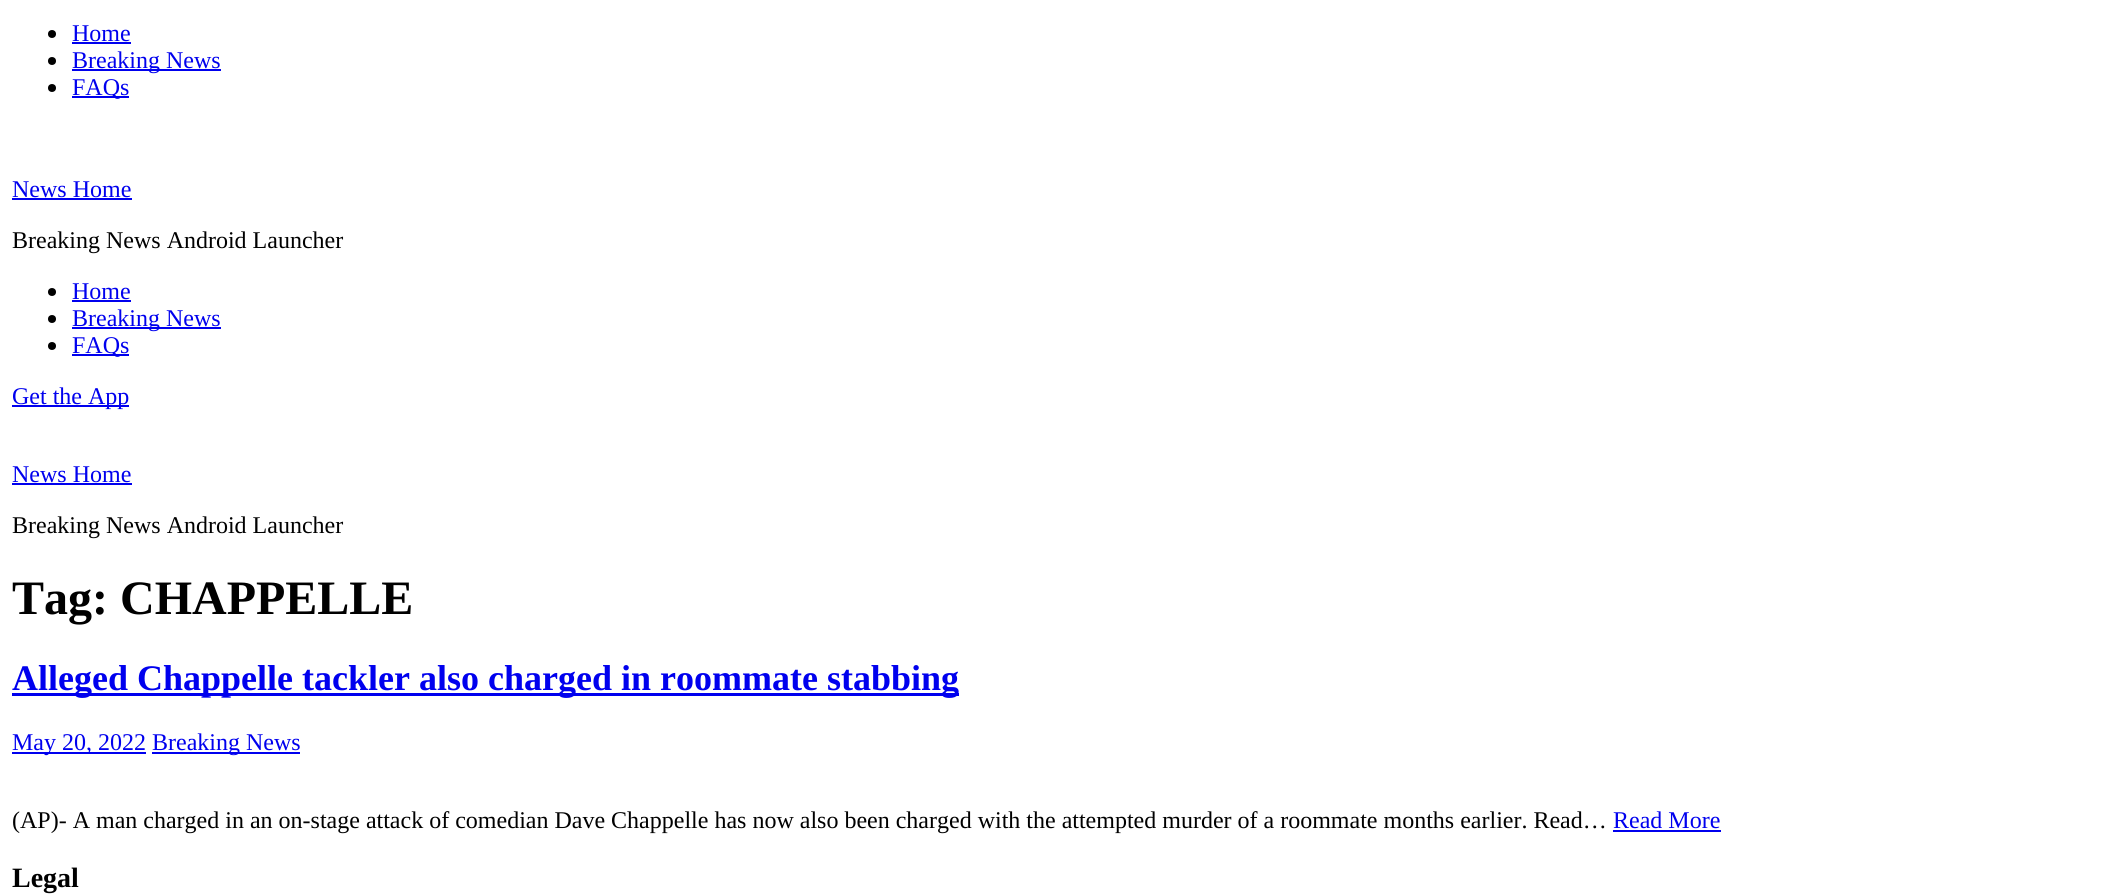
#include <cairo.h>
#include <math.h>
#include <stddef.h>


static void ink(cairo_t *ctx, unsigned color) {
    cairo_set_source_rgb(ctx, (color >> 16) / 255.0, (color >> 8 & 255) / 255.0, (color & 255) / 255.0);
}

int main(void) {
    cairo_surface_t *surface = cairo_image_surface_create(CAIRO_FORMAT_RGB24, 2111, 895);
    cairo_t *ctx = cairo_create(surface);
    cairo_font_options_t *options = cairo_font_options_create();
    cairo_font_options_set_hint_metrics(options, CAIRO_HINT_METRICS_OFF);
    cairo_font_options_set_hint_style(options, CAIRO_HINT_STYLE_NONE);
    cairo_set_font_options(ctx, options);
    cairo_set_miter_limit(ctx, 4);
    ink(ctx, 0xFFFFFF);
    cairo_paint(ctx);
    ink(ctx, 0x000000);
    cairo_arc(ctx, 52, 34, 4, 0, 2 * M_PI);
    cairo_fill(ctx);
    cairo_select_font_face(ctx, "Liberation Serif", CAIRO_FONT_SLANT_NORMAL, CAIRO_FONT_WEIGHT_NORMAL);
    cairo_set_font_size(ctx, 24);
    ink(ctx, 0x0000EE);
    cairo_move_to(ctx, 72, 41);
    cairo_show_text(ctx, "Home");
    cairo_rectangle(ctx, 72, 42, 59, 2);
    cairo_fill(ctx);
    ink(ctx, 0x000000);
    cairo_arc(ctx, 52, 61, 4, 0, 2 * M_PI);
    cairo_fill(ctx);
    ink(ctx, 0x0000EE);
    cairo_rectangle(ctx, 72, 69, 149, 2);
    cairo_fill(ctx);
    cairo_move_to(ctx, 72, 68);
    cairo_show_text(ctx, "Breaking News");
    ink(ctx, 0x000000);
    cairo_new_path(ctx);
    cairo_arc(ctx, 52, 88, 4, 0, 2 * M_PI);
    cairo_fill(ctx);
    ink(ctx, 0x0000EE);
    cairo_rectangle(ctx, 72, 96, 57, 2);
    cairo_fill(ctx);
    cairo_move_to(ctx, 72, 95);
    cairo_show_text(ctx, "FAQs");
    cairo_move_to(ctx, 12, 197);
    cairo_show_text(ctx, "News Home");
    cairo_rectangle(ctx, 12, 198, 120, 2);
    cairo_fill(ctx);
    ink(ctx, 0x000000);
    cairo_move_to(ctx, 12, 248);
    cairo_show_text(ctx, "Breaking News Android Launcher");
    cairo_new_path(ctx);
    cairo_arc(ctx, 52, 292, 4, 0, 2 * M_PI);
    cairo_fill(ctx);
    ink(ctx, 0x0000EE);
    cairo_move_to(ctx, 72, 299);
    cairo_show_text(ctx, "Home");
    cairo_rectangle(ctx, 72, 300, 59, 2);
    cairo_fill(ctx);
    ink(ctx, 0x000000);
    cairo_arc(ctx, 52, 319, 4, 0, 2 * M_PI);
    cairo_fill(ctx);
    ink(ctx, 0x0000EE);
    cairo_rectangle(ctx, 72, 327, 149, 2);
    cairo_fill(ctx);
    cairo_move_to(ctx, 72, 326);
    cairo_show_text(ctx, "Breaking News");
    ink(ctx, 0x000000);
    cairo_new_path(ctx);
    cairo_arc(ctx, 52, 346, 4, 0, 2 * M_PI);
    cairo_fill(ctx);
    ink(ctx, 0x0000EE);
    cairo_rectangle(ctx, 72, 354, 57, 2);
    cairo_fill(ctx);
    cairo_move_to(ctx, 72, 353);
    cairo_show_text(ctx, "FAQs");
    cairo_rectangle(ctx, 12, 405, 117, 2);
    cairo_fill(ctx);
    cairo_move_to(ctx, 12, 404);
    cairo_show_text(ctx, "Get the App");
    cairo_move_to(ctx, 12, 482);
    cairo_show_text(ctx, "News Home");
    cairo_rectangle(ctx, 12, 483, 120, 2);
    cairo_fill(ctx);
    ink(ctx, 0x000000);
    cairo_move_to(ctx, 12, 533);
    cairo_show_text(ctx, "Breaking News Android Launcher");
    cairo_select_font_face(ctx, "Liberation Serif", CAIRO_FONT_SLANT_NORMAL, CAIRO_FONT_WEIGHT_BOLD);
    cairo_set_font_size(ctx, 48);
    cairo_move_to(ctx, 12, 614);
    cairo_show_text(ctx, "Tag: CHAPPELLE");
    ink(ctx, 0x0000EE);
    cairo_rectangle(ctx, 12, 693, 947, 3);
    cairo_fill(ctx);
    cairo_set_font_size(ctx, 36);
    cairo_move_to(ctx, 12, 690);
    cairo_show_text(ctx, "Alleged Chappelle tackler also charged in roommate stabbing");
    cairo_rectangle(ctx, 12, 752, 134, 2);
    cairo_fill(ctx);
    cairo_select_font_face(ctx, "Liberation Serif", CAIRO_FONT_SLANT_NORMAL, CAIRO_FONT_WEIGHT_NORMAL);
    cairo_set_font_size(ctx, 24);
    cairo_move_to(ctx, 12, 750);
    cairo_show_text(ctx, "May 20, 2022");
    cairo_rectangle(ctx, 152, 752, 148, 2);
    cairo_fill(ctx);
    cairo_move_to(ctx, 152, 750);
    cairo_show_text(ctx, "Breaking News");
    ink(ctx, 0x000000);
    cairo_move_to(ctx, 12, 828);
    cairo_show_text(ctx, "(AP)- A man charged in an on-stage attack of comedian Dave Chappelle has now also been charged with the attempted murder of a roommate months earlier. Read…");
    ink(ctx, 0x0000EE);
    cairo_move_to(ctx, 1613, 828);
    cairo_show_text(ctx, "Read More");
    cairo_rectangle(ctx, 1613, 830, 108, 2);
    cairo_fill(ctx);
    cairo_select_font_face(ctx, "Liberation Serif", CAIRO_FONT_SLANT_NORMAL, CAIRO_FONT_WEIGHT_BOLD);
    cairo_set_font_size(ctx, 28);
    ink(ctx, 0x000000);
    cairo_move_to(ctx, 12, 887);
    cairo_show_text(ctx, "Legal");
    cairo_surface_write_to_png(surface, "image.png");
    cairo_font_options_destroy(options);
    cairo_destroy(ctx);
    cairo_surface_destroy(surface);
    return 0;
}
